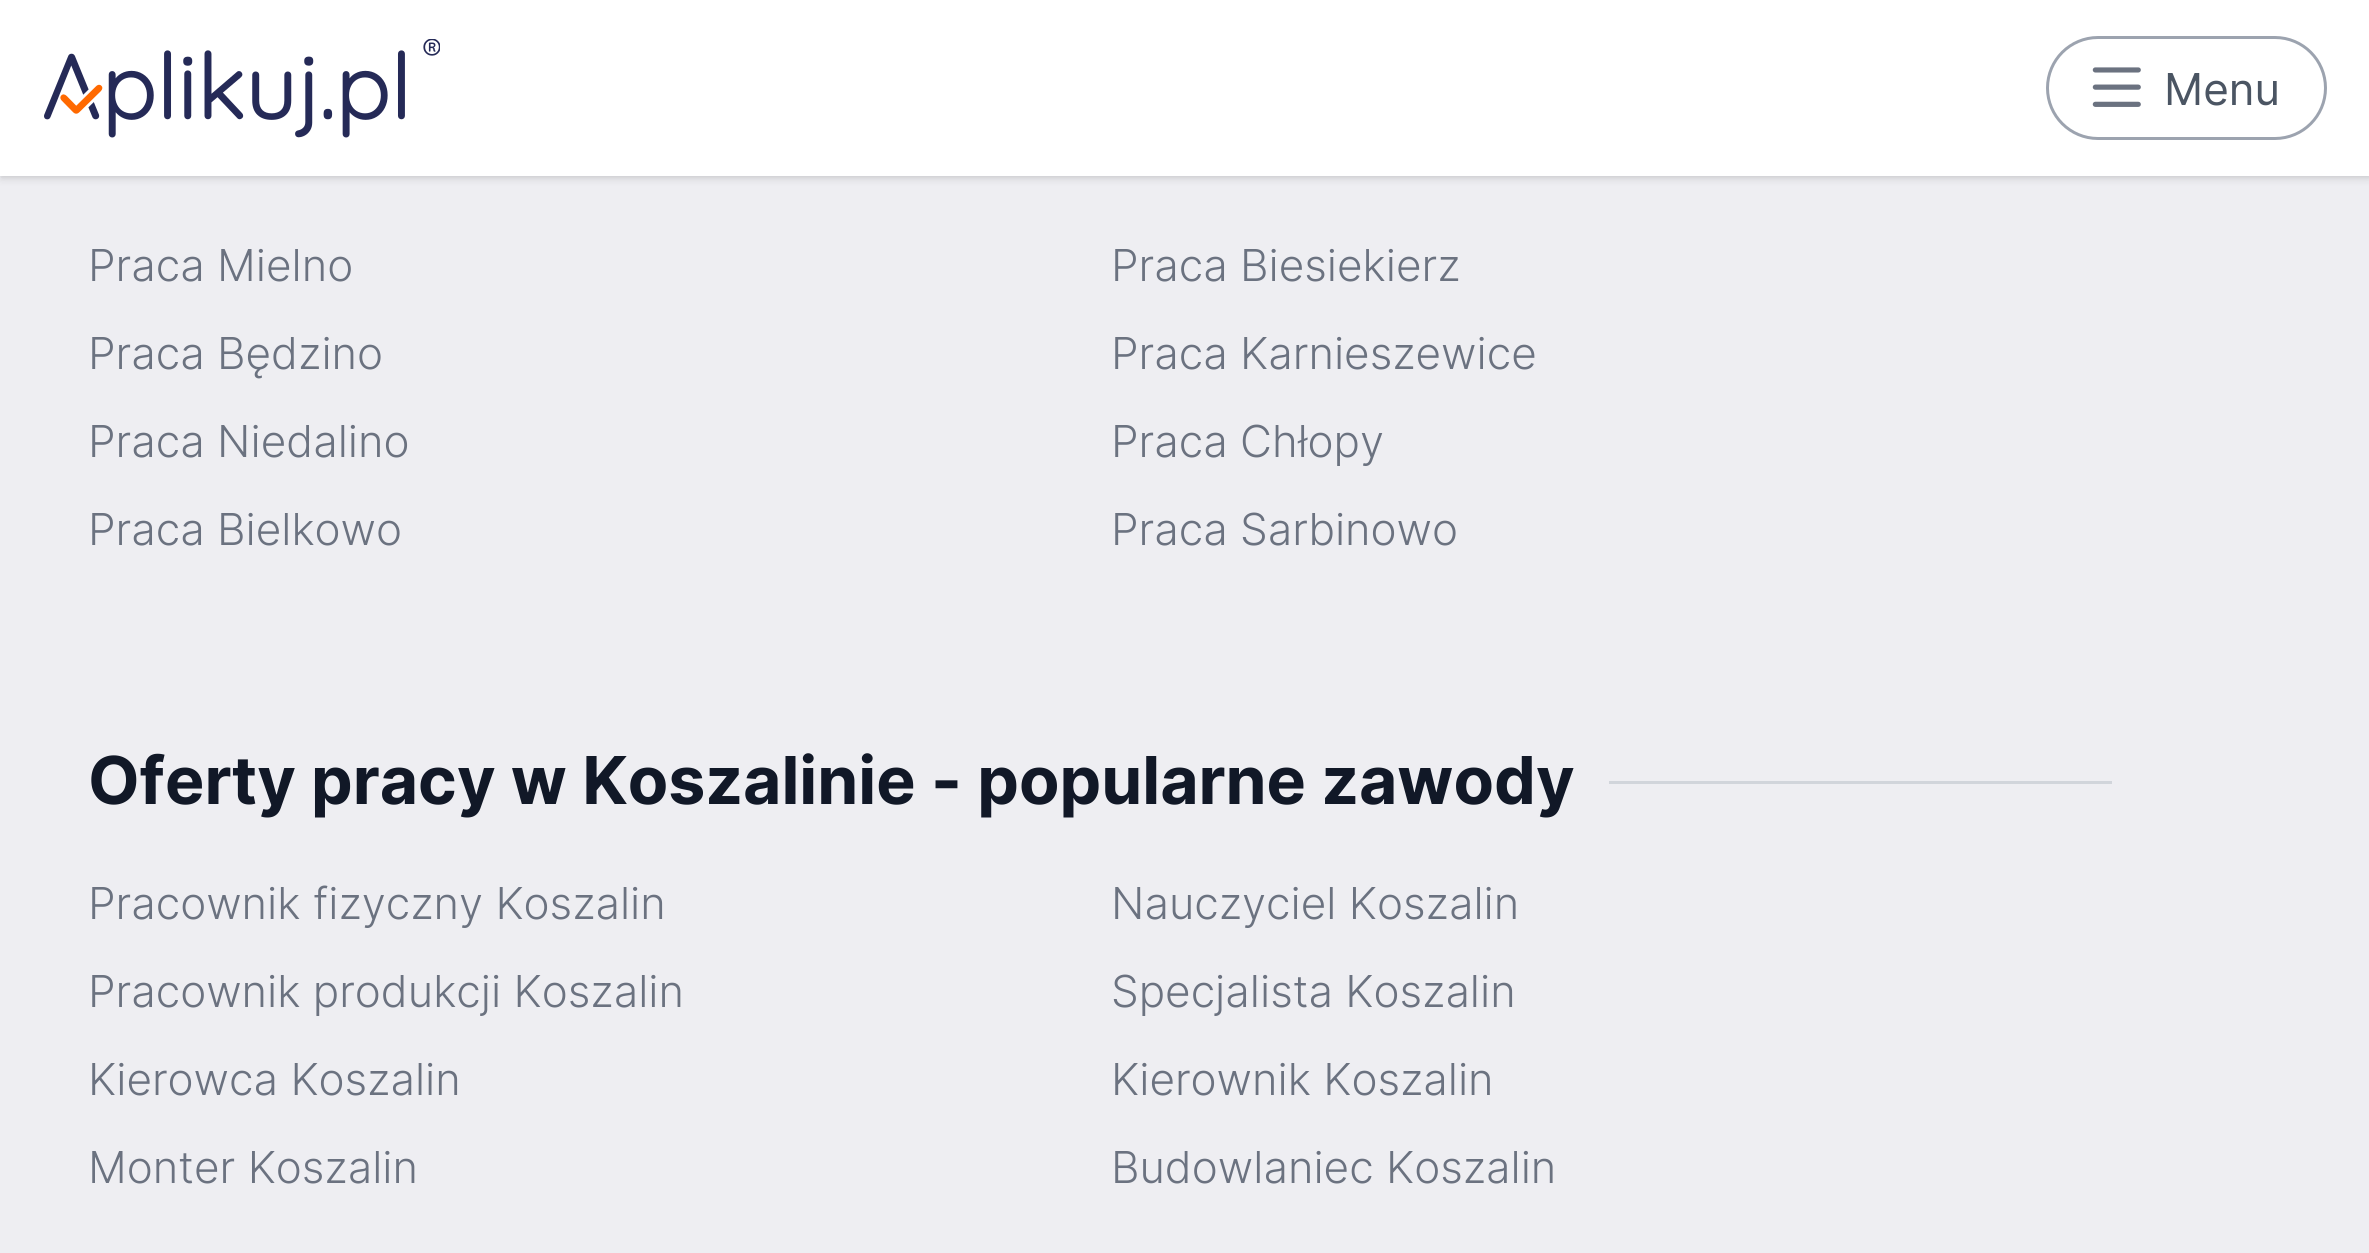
#include <cairo.h>
#include <math.h>
#include <stddef.h>

typedef struct { double x, y; const char *s; } line_t;

static void ink(cairo_t *ctx, unsigned color) {
    cairo_set_source_rgb(ctx, (color >> 16) / 255.0, (color >> 8 & 255) / 255.0, (color & 255) / 255.0);
}

static void round_path(cairo_t *ctx, double x, double y, double w, double h, double r) {
    cairo_new_sub_path(ctx);
    cairo_arc(ctx, x + w - r, y + h - r, r, 0, M_PI / 2);
    cairo_arc(ctx, x + r, y + h - r, r, M_PI / 2, M_PI);
    cairo_arc(ctx, x + r, y + r, r, M_PI, 1.5 * M_PI);
    cairo_arc(ctx, x + w - r, y + r, r, 1.5 * M_PI, 2 * M_PI);
    cairo_close_path(ctx);
}

static void blur_box(cairo_t *ctx, double x, double y, double w, double h, double r, double blur, double alpha) {
    cairo_push_group_with_content(ctx, CAIRO_CONTENT_ALPHA);
    cairo_set_operator(ctx, CAIRO_OPERATOR_SOURCE);
    for (int i = 15; i >= -15 && fmin(w, h) + blur * i / 3 > 0; i -= 2) {
        double e = blur * i / 6;
        cairo_set_source_rgba(ctx, 0, 0, 0, alpha * erfc((i - 1) / 8.5) / 2);
        round_path(ctx, x - e, y - e, w + 2 * e, h + 2 * e, fmax(0, fmin(r + e + blur * .6, fmin(w, h) / 2 + e)));
        cairo_fill(ctx);
    }
    cairo_pattern_t *soft = cairo_pop_group(ctx);
    cairo_mask(ctx, soft);
    cairo_pattern_destroy(soft);
}

static void paste(cairo_t *ctx, const char *path, double x, double y, double w, double h) {
    cairo_surface_t *image = cairo_image_surface_create_from_png(path);
    cairo_save(ctx);
    cairo_set_source_surface(ctx, image, x, y);
    cairo_rectangle(ctx, x, y, w, h);
    cairo_fill(ctx);
    cairo_restore(ctx);
    cairo_surface_destroy(image);
}

int main(void) {
    cairo_surface_t *surface = cairo_image_surface_create(CAIRO_FORMAT_RGB24, 2369, 1253);
    cairo_t *ctx = cairo_create(surface);
    cairo_font_options_t *options = cairo_font_options_create();
    cairo_font_options_set_hint_metrics(options, CAIRO_HINT_METRICS_OFF);
    cairo_font_options_set_hint_style(options, CAIRO_HINT_STYLE_NONE);
    cairo_set_font_options(ctx, options);
    cairo_set_miter_limit(ctx, 4);
    ink(ctx, 0xEEEEF2);
    cairo_paint(ctx);
    ink(ctx, 0x000000);
    blur_box(ctx, 3, 6, 2365, 170, 0, 3, 0.1);
    blur_box(ctx, 0, 3, 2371, 176, 0, 4, 0.1);
    ink(ctx, 0xFFFFFF);
    cairo_rectangle(ctx, 0, 0, 2369, 176);
    cairo_fill(ctx);
    paste(ctx, "media/1.png", 44, 39, 396, 99);
    round_path(ctx, 2047.5, 37.5, 278, 101, 50.5);
    ink(ctx, 0x9CA3AF);
    cairo_set_line_width(ctx, 3);
    cairo_stroke(ctx);
    paste(ctx, "media/2.png", 2092, 67, 49, 40);
    cairo_select_font_face(ctx, "Inter", CAIRO_FONT_SLANT_NORMAL, CAIRO_FONT_WEIGHT_NORMAL);
    cairo_set_font_size(ctx, 44);
    ink(ctx, 0x4B5563);
    cairo_move_to(ctx, 2164, 105);
    cairo_show_text(ctx, "Menu");
    cairo_select_font_face(ctx, "Inter Light", CAIRO_FONT_SLANT_NORMAL, CAIRO_FONT_WEIGHT_NORMAL);
    ink(ctx, 0x6B7280);
    {
        static const line_t items[] = {
            {88, 281, "Praca Mielno"},
            {1111, 281, "Praca Biesiekierz"},
            {88, 369, "Praca Będzino"},
            {1111, 369, "Praca Karnieszewice"},
            {88, 457, "Praca Niedalino"},
            {1111, 457, "Praca Chłopy"},
            {88, 545, "Praca Bielkowo"},
            {1111, 545, "Praca Sarbinowo"},
        };
        for (size_t i = 0; i < sizeof items / sizeof *items; i++) {
            cairo_move_to(ctx, items[i].x, items[i].y);
            cairo_show_text(ctx, items[i].s);
        }
    }
    cairo_select_font_face(ctx, "Inter", CAIRO_FONT_SLANT_NORMAL, CAIRO_FONT_WEIGHT_BOLD);
    cairo_set_font_size(ctx, 66);
    ink(ctx, 0x111827);
    cairo_move_to(ctx, 88, 804);
    cairo_show_text(ctx, "Oferty pracy w Koszalinie - popularne zawody");
    ink(ctx, 0xD1D5DB);
    cairo_rectangle(ctx, 1609, 781, 503, 3);
    cairo_fill(ctx);
    cairo_select_font_face(ctx, "Inter Light", CAIRO_FONT_SLANT_NORMAL, CAIRO_FONT_WEIGHT_NORMAL);
    cairo_set_font_size(ctx, 44);
    ink(ctx, 0x6B7280);
    {
        static const line_t items[] = {
            {88, 919, "Pracownik fizyczny Koszalin"},
            {1111, 919, "Nauczyciel Koszalin"},
            {88, 1007, "Pracownik produkcji Koszalin"},
            {1111, 1007, "Specjalista Koszalin"},
            {88, 1095, "Kierowca Koszalin"},
            {1111, 1095, "Kierownik Koszalin"},
            {88, 1183, "Monter Koszalin"},
            {1111, 1183, "Budowlaniec Koszalin"},
        };
        for (size_t i = 0; i < sizeof items / sizeof *items; i++) {
            cairo_move_to(ctx, items[i].x, items[i].y);
            cairo_show_text(ctx, items[i].s);
        }
    }
    cairo_surface_write_to_png(surface, "image.png");
    cairo_font_options_destroy(options);
    cairo_destroy(ctx);
    cairo_surface_destroy(surface);
    return 0;
}
